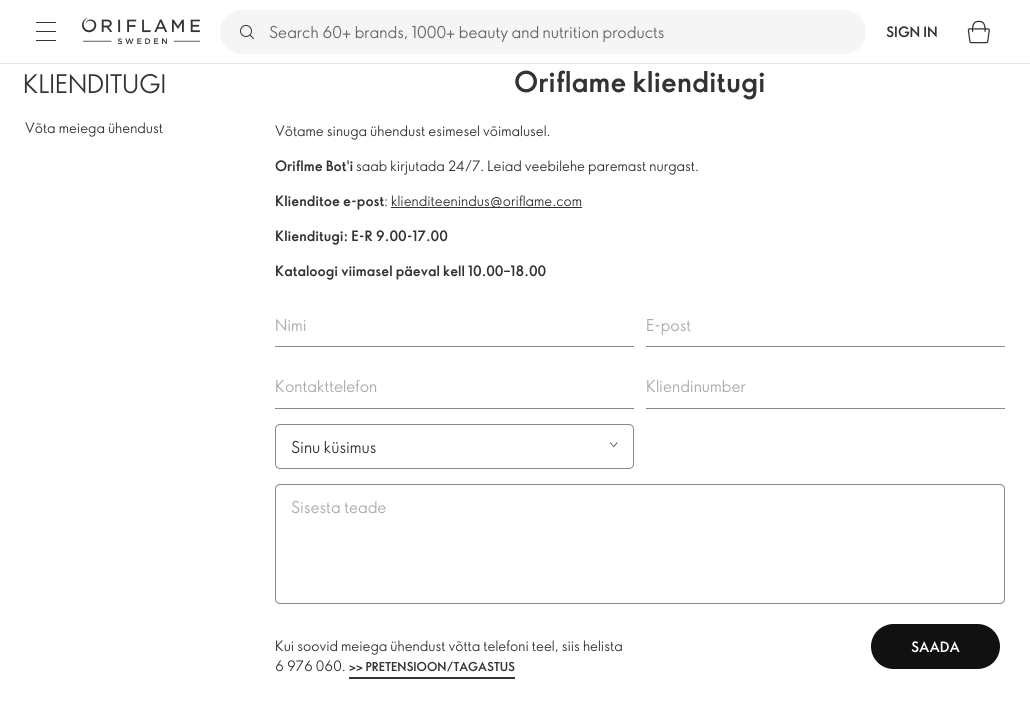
#include <cairo.h>
#include <math.h>
#include <stddef.h>

typedef struct { double x, y, w, h; unsigned color; } box_t;

static void ink(cairo_t *ctx, unsigned color) {
    cairo_set_source_rgb(ctx, (color >> 16) / 255.0, (color >> 8 & 255) / 255.0, (color & 255) / 255.0);
}

static void round_path(cairo_t *ctx, double x, double y, double w, double h, double r) {
    cairo_new_sub_path(ctx);
    cairo_arc(ctx, x + w - r, y + h - r, r, 0, M_PI / 2);
    cairo_arc(ctx, x + r, y + h - r, r, M_PI / 2, M_PI);
    cairo_arc(ctx, x + r, y + r, r, M_PI, 1.5 * M_PI);
    cairo_arc(ctx, x + w - r, y + r, r, 1.5 * M_PI, 2 * M_PI);
    cairo_close_path(ctx);
}

static void paste(cairo_t *ctx, const char *path, double x, double y, double w, double h) {
    cairo_surface_t *image = cairo_image_surface_create_from_png(path);
    cairo_save(ctx);
    cairo_set_source_surface(ctx, image, x, y);
    cairo_rectangle(ctx, x, y, w, h);
    cairo_fill(ctx);
    cairo_restore(ctx);
    cairo_surface_destroy(image);
}

int main(void) {
    cairo_surface_t *surface = cairo_image_surface_create(CAIRO_FORMAT_RGB24, 1030, 715);
    cairo_t *ctx = cairo_create(surface);
    cairo_font_options_t *options = cairo_font_options_create();
    cairo_font_options_set_hint_metrics(options, CAIRO_HINT_METRICS_OFF);
    cairo_font_options_set_hint_style(options, CAIRO_HINT_STYLE_NONE);
    cairo_set_font_options(ctx, options);
    cairo_set_miter_limit(ctx, 4);
    ink(ctx, 0xFFFFFF);
    cairo_paint(ctx);
    {
        static const box_t items[] = {
            {0, 63, 1030, 1, 0xE5E5E5},
            {36, 22, 20, 1, 0x333333},
            {36, 31, 20, 1, 0x333333},
            {36, 40, 20, 1, 0x333333},
        };
        for (size_t i = 0; i < sizeof items / sizeof *items; i++) {
            ink(ctx, items[i].color);
            cairo_rectangle(ctx, items[i].x, items[i].y, items[i].w, items[i].h);
            cairo_fill(ctx);
        }
    }
    paste(ctx, "media/1.png", 82, 18, 118, 27);
    ink(ctx, 0xF5F5F5);
    round_path(ctx, 220, 10, 646, 44, 22);
    cairo_fill(ctx);
    paste(ctx, "media/2.png", 240, 25, 14, 14);
    cairo_select_font_face(ctx, "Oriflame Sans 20", CAIRO_FONT_SLANT_NORMAL, CAIRO_FONT_WEIGHT_NORMAL);
    cairo_set_font_size(ctx, 16);
    ink(ctx, 0x666666);
    cairo_move_to(ctx, 269, 38);
    cairo_show_text(ctx, "Search 60+ brands, 1000+ beauty and nutrition products");
    cairo_select_font_face(ctx, "Oriflame Sans 20", CAIRO_FONT_SLANT_NORMAL, CAIRO_FONT_WEIGHT_BOLD);
    cairo_set_font_size(ctx, 14);
    ink(ctx, 0x333333);
    cairo_move_to(ctx, 886, 37);
    cairo_show_text(ctx, "SIGN IN");
    paste(ctx, "media/3.png", 967, 20, 23, 24);
    cairo_select_font_face(ctx, "Oriflame Sans 20", CAIRO_FONT_SLANT_NORMAL, CAIRO_FONT_WEIGHT_NORMAL);
    cairo_set_font_size(ctx, 25);
    cairo_move_to(ctx, 23, 93);
    cairo_show_text(ctx, "KLIENDITUGI");
    cairo_set_font_size(ctx, 14);
    cairo_move_to(ctx, 25, 133);
    cairo_show_text(ctx, "Võta meiega ühendust");
    cairo_select_font_face(ctx, "Oriflame Sans 20", CAIRO_FONT_SLANT_NORMAL, CAIRO_FONT_WEIGHT_BOLD);
    cairo_set_font_size(ctx, 28);
    cairo_move_to(ctx, 514, 92);
    cairo_show_text(ctx, "Oriflame klienditugi");
    cairo_select_font_face(ctx, "Oriflame Sans 20", CAIRO_FONT_SLANT_NORMAL, CAIRO_FONT_WEIGHT_NORMAL);
    cairo_set_font_size(ctx, 14);
    cairo_move_to(ctx, 275, 136);
    cairo_show_text(ctx, "Võtame sinuga ühendust esimesel võimalusel.");
    cairo_select_font_face(ctx, "Oriflame Sans 20", CAIRO_FONT_SLANT_NORMAL, CAIRO_FONT_WEIGHT_BOLD);
    cairo_move_to(ctx, 275, 171);
    cairo_show_text(ctx, "Oriflme Bot'i");
    cairo_select_font_face(ctx, "Oriflame Sans 20", CAIRO_FONT_SLANT_NORMAL, CAIRO_FONT_WEIGHT_NORMAL);
    cairo_move_to(ctx, 356, 171);
    cairo_show_text(ctx, "saab kirjutada 24/7. Leiad veebilehe paremast nurgast.");
    cairo_select_font_face(ctx, "Oriflame Sans 20", CAIRO_FONT_SLANT_NORMAL, CAIRO_FONT_WEIGHT_BOLD);
    cairo_move_to(ctx, 275, 206);
    cairo_show_text(ctx, "Klienditoe e-post");
    cairo_select_font_face(ctx, "Oriflame Sans 20", CAIRO_FONT_SLANT_NORMAL, CAIRO_FONT_WEIGHT_NORMAL);
    cairo_move_to(ctx, 384, 206);
    cairo_show_text(ctx, ":");
    cairo_rectangle(ctx, 391, 207, 191, 1);
    cairo_fill(ctx);
    cairo_move_to(ctx, 391, 206);
    cairo_show_text(ctx, "klienditeenindus@oriflame.com");
    cairo_select_font_face(ctx, "Oriflame Sans 20", CAIRO_FONT_SLANT_NORMAL, CAIRO_FONT_WEIGHT_BOLD);
    cairo_move_to(ctx, 275, 241);
    cairo_show_text(ctx, "Klienditugi: E-R 9.00-17.00");
    cairo_move_to(ctx, 275, 276);
    cairo_show_text(ctx, "Kataloogi viimasel päeval kell 10.00–18.00");
    cairo_select_font_face(ctx, "Oriflame Sans 20", CAIRO_FONT_SLANT_NORMAL, CAIRO_FONT_WEIGHT_NORMAL);
    cairo_set_font_size(ctx, 16);
    ink(ctx, 0xAAAAAA);
    cairo_move_to(ctx, 275, 331);
    cairo_show_text(ctx, "Nimi");
    ink(ctx, 0x888888);
    cairo_rectangle(ctx, 275, 346, 359, 1);
    cairo_fill(ctx);
    ink(ctx, 0xAAAAAA);
    cairo_move_to(ctx, 646, 331);
    cairo_show_text(ctx, "E-post");
    ink(ctx, 0x888888);
    cairo_rectangle(ctx, 646, 346, 359, 1);
    cairo_fill(ctx);
    ink(ctx, 0xAAAAAA);
    cairo_move_to(ctx, 275, 392);
    cairo_show_text(ctx, "Kontakttelefon");
    ink(ctx, 0x888888);
    cairo_rectangle(ctx, 275, 408, 359, 1);
    cairo_fill(ctx);
    ink(ctx, 0xAAAAAA);
    cairo_move_to(ctx, 646, 392);
    cairo_show_text(ctx, "Kliendinumber");
    ink(ctx, 0x888888);
    cairo_rectangle(ctx, 646, 408, 359, 1);
    cairo_fill(ctx);
    round_path(ctx, 275.5, 424.5, 358, 44, 4.5);
    cairo_set_line_width(ctx, 1);
    cairo_stroke(ctx);
    ink(ctx, 0x333333);
    cairo_move_to(ctx, 291, 453);
    cairo_show_text(ctx, "Sinu küsimus");
    paste(ctx, "media/4.png", 610, 442, 8, 5);
    round_path(ctx, 275.5, 484.5, 729, 119, 4.5);
    ink(ctx, 0x888888);
    cairo_stroke(ctx);
    ink(ctx, 0xAAAAAA);
    cairo_move_to(ctx, 291, 513);
    cairo_show_text(ctx, "Sisesta teade");
    cairo_set_font_size(ctx, 14);
    ink(ctx, 0x333333);
    cairo_move_to(ctx, 275, 651);
    cairo_show_text(ctx, "Kui soovid meiega ühendust võtta telefoni teel, siis helista");
    cairo_move_to(ctx, 275, 671);
    cairo_show_text(ctx, "6 976 060.");
    cairo_rectangle(ctx, 349, 677, 166, 2);
    cairo_fill(ctx);
    cairo_select_font_face(ctx, "Oriflame Sans 20", CAIRO_FONT_SLANT_NORMAL, CAIRO_FONT_WEIGHT_BOLD);
    cairo_set_font_size(ctx, 12);
    cairo_move_to(ctx, 349, 671);
    cairo_show_text(ctx, ">> PRETENSIOON/TAGASTUS");
    ink(ctx, 0x111111);
    round_path(ctx, 871, 624, 129, 45, 22.5);
    cairo_fill(ctx);
    cairo_set_font_size(ctx, 14);
    ink(ctx, 0xFFFFFF);
    cairo_move_to(ctx, 911, 652);
    cairo_show_text(ctx, "SAADA");
    cairo_surface_write_to_png(surface, "image.png");
    cairo_font_options_destroy(options);
    cairo_destroy(ctx);
    cairo_surface_destroy(surface);
    return 0;
}
